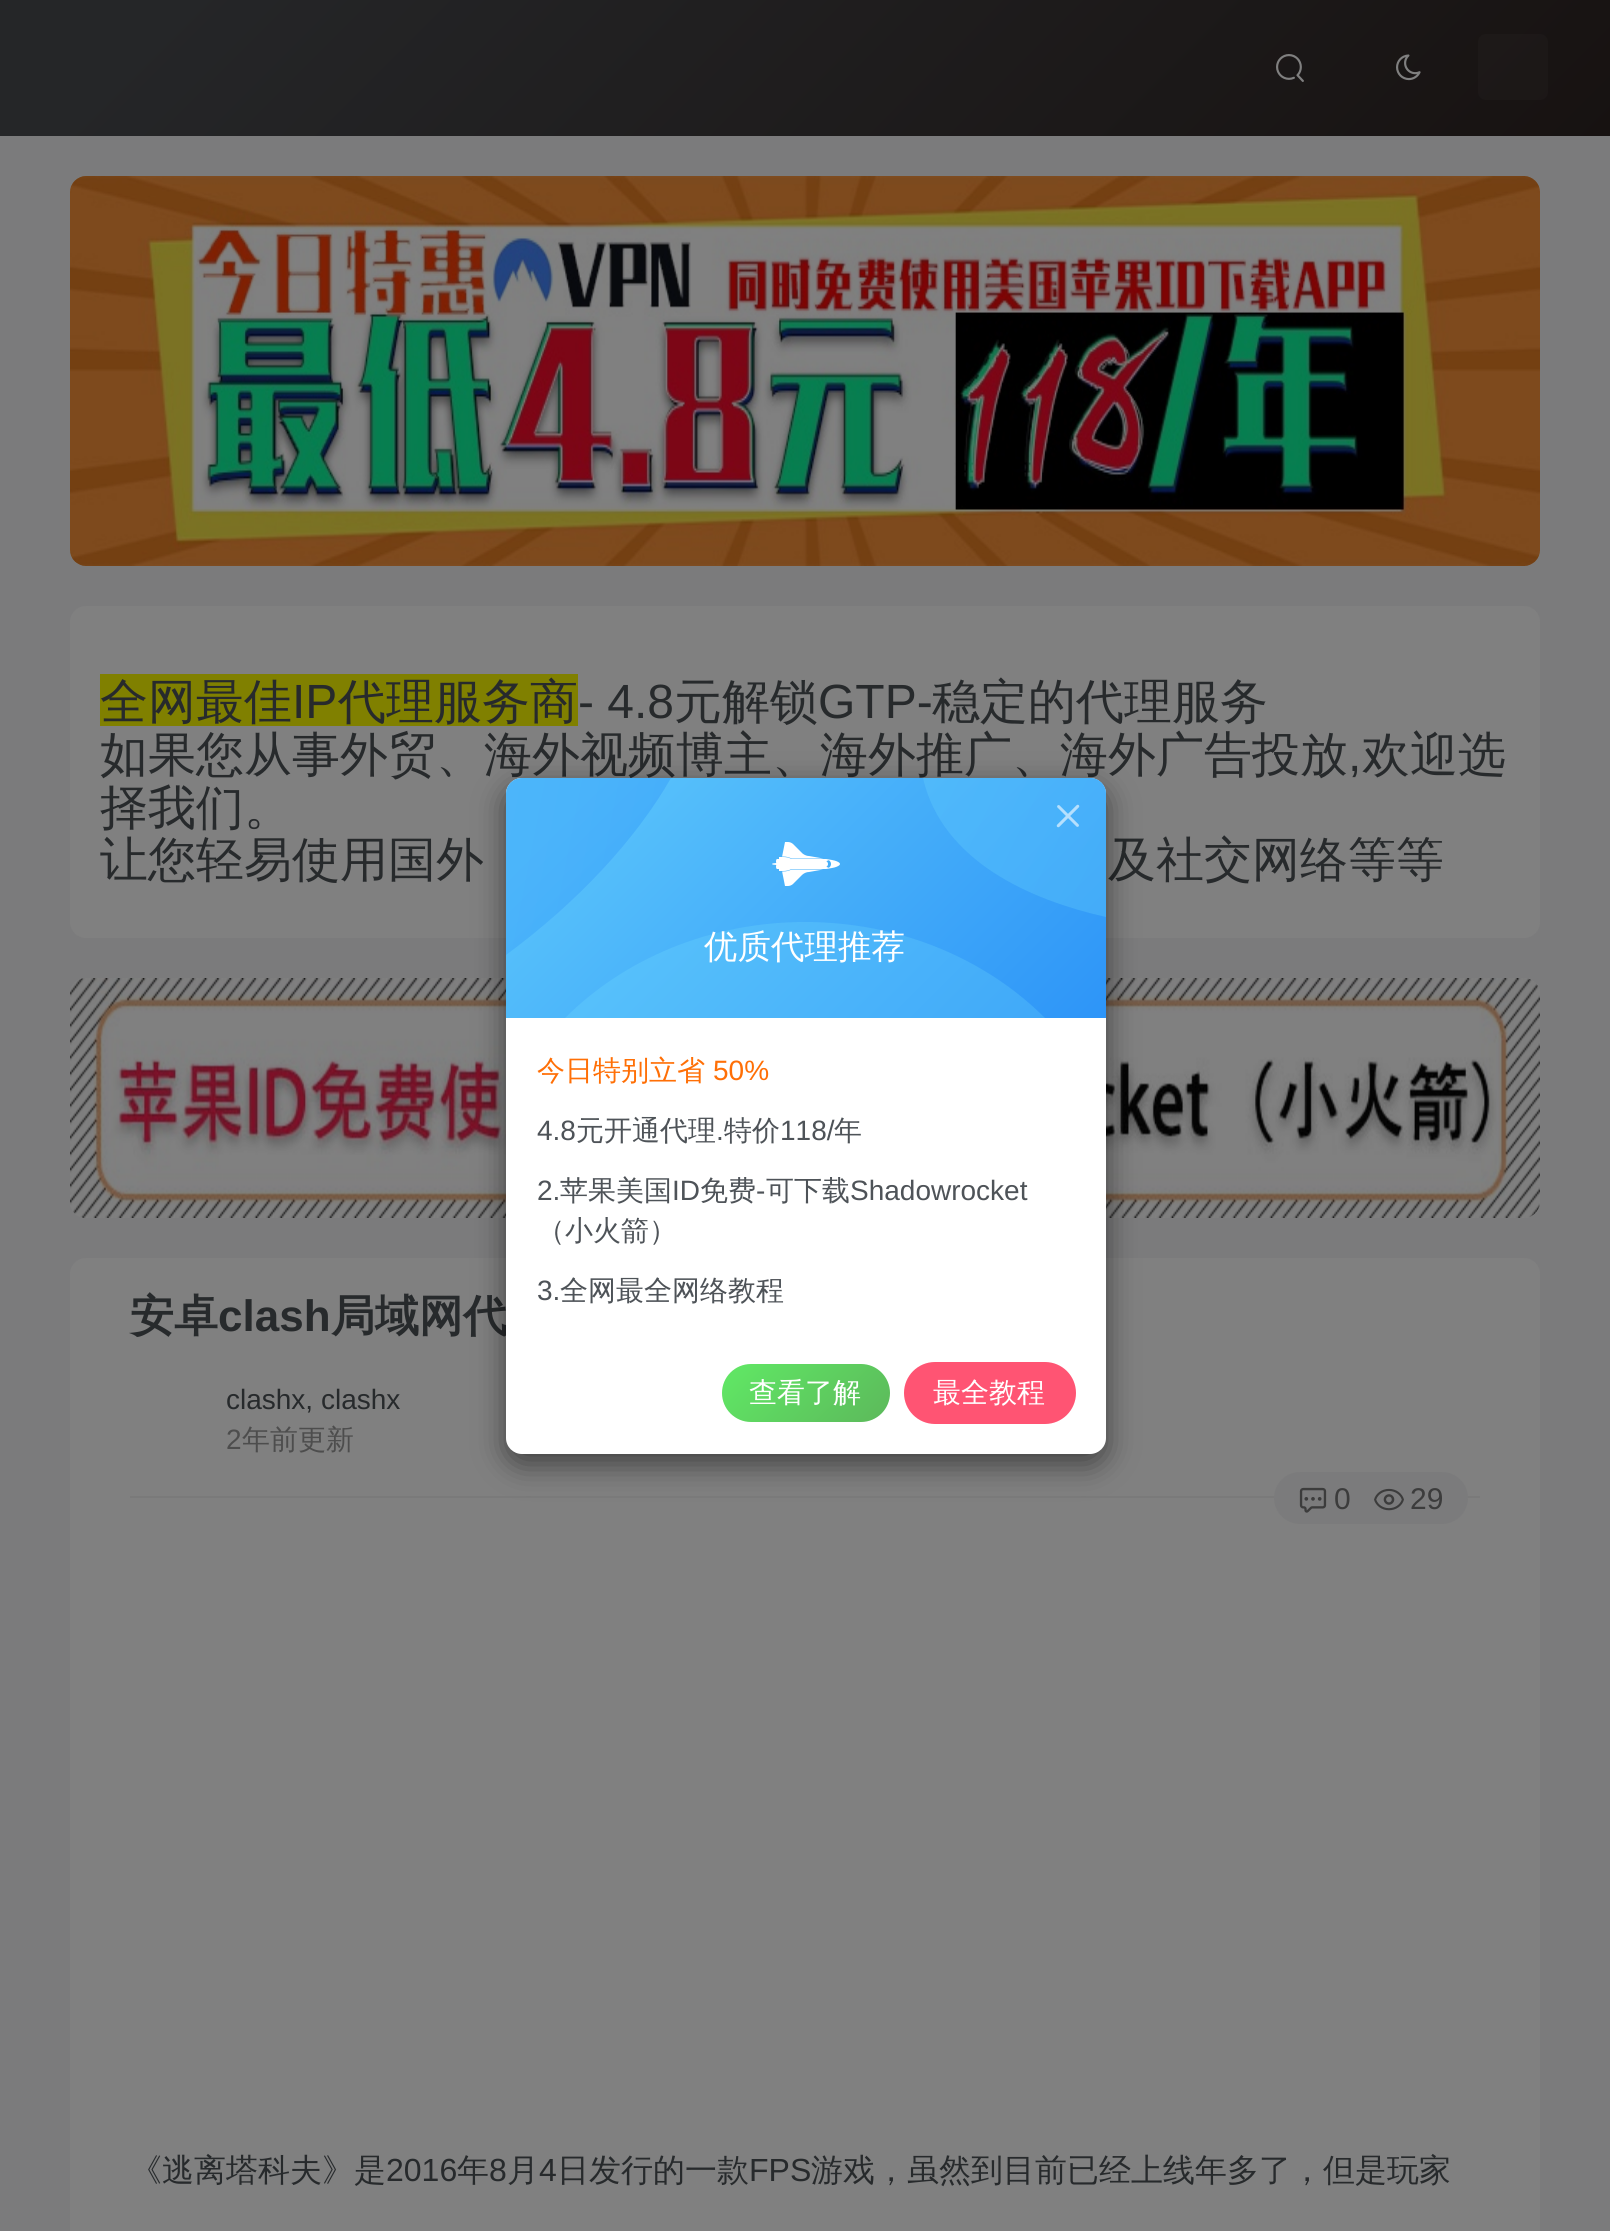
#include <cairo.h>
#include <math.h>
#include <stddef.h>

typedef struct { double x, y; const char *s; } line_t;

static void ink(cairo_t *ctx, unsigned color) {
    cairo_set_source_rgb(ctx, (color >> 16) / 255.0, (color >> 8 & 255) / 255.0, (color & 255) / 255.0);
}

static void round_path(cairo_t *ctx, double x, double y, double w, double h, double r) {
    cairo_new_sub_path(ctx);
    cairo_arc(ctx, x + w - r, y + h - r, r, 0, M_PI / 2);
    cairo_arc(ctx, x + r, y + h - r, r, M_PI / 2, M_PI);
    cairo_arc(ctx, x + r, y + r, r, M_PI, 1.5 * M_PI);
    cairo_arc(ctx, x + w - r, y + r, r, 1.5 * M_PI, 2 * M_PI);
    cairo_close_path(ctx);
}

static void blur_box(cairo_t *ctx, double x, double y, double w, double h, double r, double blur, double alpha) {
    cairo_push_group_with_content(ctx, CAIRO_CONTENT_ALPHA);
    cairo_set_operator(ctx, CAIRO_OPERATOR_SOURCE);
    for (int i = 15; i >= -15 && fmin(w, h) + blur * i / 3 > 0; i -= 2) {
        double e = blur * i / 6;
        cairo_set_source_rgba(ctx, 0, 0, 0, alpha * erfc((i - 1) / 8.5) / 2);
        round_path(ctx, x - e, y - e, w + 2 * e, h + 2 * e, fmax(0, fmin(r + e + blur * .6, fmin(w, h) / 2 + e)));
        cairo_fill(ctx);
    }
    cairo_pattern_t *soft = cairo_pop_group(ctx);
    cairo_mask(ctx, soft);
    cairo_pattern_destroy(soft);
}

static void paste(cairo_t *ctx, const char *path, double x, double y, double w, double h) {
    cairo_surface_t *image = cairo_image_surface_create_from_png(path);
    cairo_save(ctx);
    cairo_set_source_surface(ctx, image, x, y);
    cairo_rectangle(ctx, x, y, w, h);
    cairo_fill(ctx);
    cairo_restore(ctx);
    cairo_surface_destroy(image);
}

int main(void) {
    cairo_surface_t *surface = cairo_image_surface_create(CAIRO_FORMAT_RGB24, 1610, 2231);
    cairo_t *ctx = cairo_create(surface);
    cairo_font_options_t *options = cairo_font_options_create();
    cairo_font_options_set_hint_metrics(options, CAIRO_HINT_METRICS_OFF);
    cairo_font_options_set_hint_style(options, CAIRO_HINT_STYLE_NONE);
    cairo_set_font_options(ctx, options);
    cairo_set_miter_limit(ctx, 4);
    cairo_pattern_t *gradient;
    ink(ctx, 0x7B7B7C);
    cairo_paint(ctx);
    gradient = cairo_pattern_create_linear(368, -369, 1242, 505);
    cairo_pattern_add_color_stop_rgba(gradient, 0.1, 0.145, 0.149, 0.157, 1);
    cairo_pattern_add_color_stop_rgba(gradient, 1, 0.09, 0.071, 0.067, 1);
    cairo_set_source(ctx, gradient);
    cairo_pattern_destroy(gradient);
    cairo_rectangle(ctx, 0, 0, 1610, 136);
    cairo_fill(ctx);
    paste(ctx, "media/1.png", 1276, 54, 28, 28);
    paste(ctx, "media/2.png", 1396, 54, 25, 27);
    cairo_set_source_rgba(ctx, 0.267, 0.267, 0.267, 0.1);
    round_path(ctx, 1478, 34, 70, 66, 8);
    cairo_fill(ctx);
    ink(ctx, 0x808080);
    round_path(ctx, 70, 176, 1470, 390, 16);
    cairo_fill(ctx);
    paste(ctx, "media/3.png", 70, 176, 1470, 390);
    round_path(ctx, 70, 606, 1470, 332, 16);
    cairo_fill(ctx);
    ink(ctx, 0x808000);
    cairo_rectangle(ctx, 100, 674, 478, 52);
    cairo_fill(ctx);
    cairo_select_font_face(ctx, "WenQuanYi Zen Hei Medium", CAIRO_FONT_SLANT_NORMAL, CAIRO_FONT_WEIGHT_NORMAL);
    cairo_set_font_size(ctx, 48);
    ink(ctx, 0x272A2C);
    cairo_move_to(ctx, 100, 718);
    cairo_show_text(ctx, "全网最佳");
    cairo_select_font_face(ctx, "Liberation Sans", CAIRO_FONT_SLANT_NORMAL, CAIRO_FONT_WEIGHT_NORMAL);
    cairo_move_to(ctx, 292, 718);
    cairo_show_text(ctx, "IP");
    cairo_select_font_face(ctx, "WenQuanYi Zen Hei Medium", CAIRO_FONT_SLANT_NORMAL, CAIRO_FONT_WEIGHT_NORMAL);
    cairo_move_to(ctx, 338, 718);
    cairo_show_text(ctx, "代理服务商");
    cairo_select_font_face(ctx, "Liberation Sans", CAIRO_FONT_SLANT_NORMAL, CAIRO_FONT_WEIGHT_NORMAL);
    cairo_move_to(ctx, 578, 718);
    cairo_show_text(ctx, "- 4.8");
    cairo_select_font_face(ctx, "WenQuanYi Zen Hei Medium", CAIRO_FONT_SLANT_NORMAL, CAIRO_FONT_WEIGHT_NORMAL);
    cairo_move_to(ctx, 674, 718);
    cairo_show_text(ctx, "元解锁");
    cairo_select_font_face(ctx, "Liberation Sans", CAIRO_FONT_SLANT_NORMAL, CAIRO_FONT_WEIGHT_NORMAL);
    cairo_move_to(ctx, 818, 718);
    cairo_show_text(ctx, "GTP-");
    cairo_select_font_face(ctx, "WenQuanYi Zen Hei Medium", CAIRO_FONT_SLANT_NORMAL, CAIRO_FONT_WEIGHT_NORMAL);
    cairo_move_to(ctx, 932, 718);
    cairo_show_text(ctx, "稳定的代理服务");
    cairo_move_to(ctx, 100, 771);
    cairo_show_text(ctx, "如果您从事外贸、海外视频博主、海外推广、海外广告投放");
    cairo_select_font_face(ctx, "Liberation Sans", CAIRO_FONT_SLANT_NORMAL, CAIRO_FONT_WEIGHT_NORMAL);
    cairo_move_to(ctx, 1348, 771);
    cairo_show_text(ctx, ",");
    cairo_select_font_face(ctx, "WenQuanYi Zen Hei Medium", CAIRO_FONT_SLANT_NORMAL, CAIRO_FONT_WEIGHT_NORMAL);
    {
        static const line_t items[] = {
            {1362, 771, "欢迎选"},
            {100, 824, "择我们。"},
            {100, 876, "让您轻易使用国外"},
            {1108, 876, "及社交网络等等"},
        };
        for (size_t i = 0; i < sizeof items / sizeof *items; i++) {
            cairo_move_to(ctx, items[i].x, items[i].y);
            cairo_show_text(ctx, items[i].s);
        }
    }
    ink(ctx, 0x808080);
    round_path(ctx, 70, 978, 1470, 240, 16);
    cairo_fill(ctx);
    paste(ctx, "media/4.png", 70, 978, 1470, 240);
    round_path(ctx, 70, 1258, 1470, 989, 16);
    cairo_fill(ctx);
    cairo_select_font_face(ctx, "WenQuanYi Zen Hei", CAIRO_FONT_SLANT_NORMAL, CAIRO_FONT_WEIGHT_BOLD);
    cairo_set_font_size(ctx, 44);
    ink(ctx, 0x272A2C);
    cairo_move_to(ctx, 130, 1331);
    cairo_show_text(ctx, "安卓");
    cairo_select_font_face(ctx, "Liberation Sans", CAIRO_FONT_SLANT_NORMAL, CAIRO_FONT_WEIGHT_BOLD);
    cairo_move_to(ctx, 218, 1331);
    cairo_show_text(ctx, "clash");
    cairo_select_font_face(ctx, "WenQuanYi Zen Hei", CAIRO_FONT_SLANT_NORMAL, CAIRO_FONT_WEIGHT_BOLD);
    cairo_move_to(ctx, 331, 1331);
    cairo_show_text(ctx, "局域网代");
    cairo_select_font_face(ctx, "Liberation Sans", CAIRO_FONT_SLANT_NORMAL, CAIRO_FONT_WEIGHT_NORMAL);
    cairo_set_font_size(ctx, 28);
    cairo_move_to(ctx, 226, 1409);
    cairo_show_text(ctx, "clashx, clashx");
    ink(ctx, 0x4D4D4D);
    cairo_move_to(ctx, 226, 1449);
    cairo_show_text(ctx, "2");
    cairo_select_font_face(ctx, "WenQuanYi Zen Hei Medium", CAIRO_FONT_SLANT_NORMAL, CAIRO_FONT_WEIGHT_NORMAL);
    cairo_move_to(ctx, 242, 1449);
    cairo_show_text(ctx, "年前更新");
    ink(ctx, 0x7A7A7A);
    cairo_rectangle(ctx, 130, 1496, 1350, 2);
    cairo_fill(ctx);
    ink(ctx, 0x7B7B7C);
    round_path(ctx, 1274, 1472, 194, 52, 26);
    cairo_fill(ctx);
    paste(ctx, "media/5.png", 1299, 1487, 28, 26);
    cairo_select_font_face(ctx, "Liberation Sans", CAIRO_FONT_SLANT_NORMAL, CAIRO_FONT_WEIGHT_NORMAL);
    cairo_set_font_size(ctx, 30);
    ink(ctx, 0x3C3C3C);
    cairo_move_to(ctx, 1334, 1509);
    cairo_show_text(ctx, "0");
    paste(ctx, "media/6.png", 1374, 1488, 30, 23);
    cairo_move_to(ctx, 1410, 1509);
    cairo_show_text(ctx, "29");
    cairo_select_font_face(ctx, "WenQuanYi Zen Hei Medium", CAIRO_FONT_SLANT_NORMAL, CAIRO_FONT_WEIGHT_NORMAL);
    cairo_set_font_size(ctx, 32);
    ink(ctx, 0x272A2C);
    cairo_move_to(ctx, 130, 2181);
    cairo_show_text(ctx, "《逃离塔科夫》是");
    cairo_select_font_face(ctx, "Liberation Sans", CAIRO_FONT_SLANT_NORMAL, CAIRO_FONT_WEIGHT_NORMAL);
    cairo_move_to(ctx, 386, 2181);
    cairo_show_text(ctx, "2016");
    cairo_select_font_face(ctx, "WenQuanYi Zen Hei Medium", CAIRO_FONT_SLANT_NORMAL, CAIRO_FONT_WEIGHT_NORMAL);
    cairo_move_to(ctx, 457, 2181);
    cairo_show_text(ctx, "年");
    cairo_select_font_face(ctx, "Liberation Sans", CAIRO_FONT_SLANT_NORMAL, CAIRO_FONT_WEIGHT_NORMAL);
    cairo_move_to(ctx, 489, 2181);
    cairo_show_text(ctx, "8");
    cairo_select_font_face(ctx, "WenQuanYi Zen Hei Medium", CAIRO_FONT_SLANT_NORMAL, CAIRO_FONT_WEIGHT_NORMAL);
    cairo_move_to(ctx, 507, 2181);
    cairo_show_text(ctx, "月");
    cairo_select_font_face(ctx, "Liberation Sans", CAIRO_FONT_SLANT_NORMAL, CAIRO_FONT_WEIGHT_NORMAL);
    cairo_move_to(ctx, 539, 2181);
    cairo_show_text(ctx, "4");
    cairo_select_font_face(ctx, "WenQuanYi Zen Hei Medium", CAIRO_FONT_SLANT_NORMAL, CAIRO_FONT_WEIGHT_NORMAL);
    cairo_move_to(ctx, 557, 2181);
    cairo_show_text(ctx, "日发行的一款");
    cairo_select_font_face(ctx, "Liberation Sans", CAIRO_FONT_SLANT_NORMAL, CAIRO_FONT_WEIGHT_NORMAL);
    cairo_move_to(ctx, 749, 2181);
    cairo_show_text(ctx, "FPS");
    cairo_select_font_face(ctx, "WenQuanYi Zen Hei Medium", CAIRO_FONT_SLANT_NORMAL, CAIRO_FONT_WEIGHT_NORMAL);
    cairo_move_to(ctx, 811, 2181);
    cairo_show_text(ctx, "游戏，虽然到目前已经上线年多了，但是玩家");
    ink(ctx, 0x000000);
    blur_box(ctx, 506, 788, 600, 676, 16, 15, 0.5);
    ink(ctx, 0xFFFFFF);
    round_path(ctx, 506, 778, 600, 676, 16);
    cairo_fill(ctx);
    gradient = cairo_pattern_create_linear(626, 658, 1106, 1138);
    cairo_pattern_add_color_stop_rgba(gradient, 0.1, 0.349, 0.765, 0.984, 1);
    cairo_pattern_add_color_stop_rgba(gradient, 1, 0.149, 0.553, 0.969, 1);
    cairo_set_source(ctx, gradient);
    cairo_pattern_destroy(gradient);
    cairo_new_path(ctx);
    cairo_move_to(ctx, 522, 778);
    cairo_line_to(ctx, 1090, 778);
    cairo_curve_to(ctx, 1099, 778, 1106, 785, 1106, 794);
    cairo_line_to(ctx, 1106, 1018);
    cairo_line_to(ctx, 506, 1018);
    cairo_line_to(ctx, 506, 794);
    cairo_curve_to(ctx, 506, 785, 513, 778, 522, 778);
    cairo_close_path(ctx);
    cairo_fill(ctx);
    gradient = cairo_pattern_create_linear(499, 906, 1112, 1519);
    cairo_pattern_add_color_stop_rgba(gradient, 0.1, 0.349, 0.765, 0.984, 1);
    cairo_pattern_add_color_stop_rgba(gradient, 1, 0.149, 0.553, 0.969, 1);
    cairo_set_source(ctx, gradient);
    cairo_pattern_destroy(gradient);
    cairo_new_path(ctx);
    cairo_move_to(ctx, 805, 922);
    cairo_curve_to(ctx, 900, 922, 986, 959, 1045, 1018);
    cairo_line_to(ctx, 565, 1018);
    cairo_curve_to(ctx, 624, 959, 710, 922, 805, 922);
    cairo_close_path(ctx);
    cairo_fill(ctx);
    gradient = cairo_pattern_create_linear(-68, 713, 788, 879);
    cairo_pattern_add_color_stop_rgba(gradient, 0.1, 0.349, 0.765, 0.984, 0.4);
    cairo_pattern_add_color_stop_rgba(gradient, 1, 0.149, 0.553, 0.969, 0.4);
    cairo_set_source(ctx, gradient);
    cairo_pattern_destroy(gradient);
    cairo_new_path(ctx);
    cairo_move_to(ctx, 522, 778);
    cairo_line_to(ctx, 671, 778);
    cairo_curve_to(ctx, 636, 839, 579, 901, 506, 955);
    cairo_line_to(ctx, 506, 794);
    cairo_curve_to(ctx, 506, 785, 513, 778, 522, 778);
    cairo_close_path(ctx);
    cairo_fill(ctx);
    gradient = cairo_pattern_create_linear(946, 269, 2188, 875);
    cairo_pattern_add_color_stop_rgba(gradient, 0.1, 0.349, 0.765, 0.984, 0.6);
    cairo_pattern_add_color_stop_rgba(gradient, 1, 0.149, 0.553, 0.969, 0.6);
    cairo_set_source(ctx, gradient);
    cairo_pattern_destroy(gradient);
    cairo_new_path(ctx);
    cairo_move_to(ctx, 1106, 917);
    cairo_curve_to(ctx, 1030, 900, 942, 861, 923, 778);
    cairo_line_to(ctx, 1090, 778);
    cairo_curve_to(ctx, 1099, 778, 1106, 785, 1106, 794);
    cairo_close_path(ctx);
    cairo_fill(ctx);
    paste(ctx, "media/7.png", 1056, 804, 24, 24);
    paste(ctx, "media/8.png", 772, 842, 68, 44);
    cairo_set_font_size(ctx, 33.5);
    ink(ctx, 0xFFFFFF);
    cairo_move_to(ctx, 704, 958);
    cairo_show_text(ctx, "优质代理推荐");
    cairo_set_font_size(ctx, 28);
    ink(ctx, 0xFF6F06);
    cairo_move_to(ctx, 537, 1080);
    cairo_show_text(ctx, "今日特别立省");
    cairo_select_font_face(ctx, "Liberation Sans", CAIRO_FONT_SLANT_NORMAL, CAIRO_FONT_WEIGHT_NORMAL);
    cairo_move_to(ctx, 713, 1080);
    cairo_show_text(ctx, "50%");
    ink(ctx, 0x4E5358);
    cairo_move_to(ctx, 537, 1140);
    cairo_show_text(ctx, "4.8");
    cairo_select_font_face(ctx, "WenQuanYi Zen Hei Medium", CAIRO_FONT_SLANT_NORMAL, CAIRO_FONT_WEIGHT_NORMAL);
    cairo_move_to(ctx, 576, 1140);
    cairo_show_text(ctx, "元开通代理");
    cairo_select_font_face(ctx, "Liberation Sans", CAIRO_FONT_SLANT_NORMAL, CAIRO_FONT_WEIGHT_NORMAL);
    cairo_move_to(ctx, 716, 1140);
    cairo_show_text(ctx, ".");
    cairo_select_font_face(ctx, "WenQuanYi Zen Hei Medium", CAIRO_FONT_SLANT_NORMAL, CAIRO_FONT_WEIGHT_NORMAL);
    cairo_move_to(ctx, 724, 1140);
    cairo_show_text(ctx, "特价");
    cairo_select_font_face(ctx, "Liberation Sans", CAIRO_FONT_SLANT_NORMAL, CAIRO_FONT_WEIGHT_NORMAL);
    cairo_move_to(ctx, 780, 1140);
    cairo_show_text(ctx, "118/");
    cairo_select_font_face(ctx, "WenQuanYi Zen Hei Medium", CAIRO_FONT_SLANT_NORMAL, CAIRO_FONT_WEIGHT_NORMAL);
    cairo_move_to(ctx, 834, 1140);
    cairo_show_text(ctx, "年");
    cairo_select_font_face(ctx, "Liberation Sans", CAIRO_FONT_SLANT_NORMAL, CAIRO_FONT_WEIGHT_NORMAL);
    cairo_move_to(ctx, 537, 1200);
    cairo_show_text(ctx, "2.");
    cairo_select_font_face(ctx, "WenQuanYi Zen Hei Medium", CAIRO_FONT_SLANT_NORMAL, CAIRO_FONT_WEIGHT_NORMAL);
    cairo_move_to(ctx, 560, 1200);
    cairo_show_text(ctx, "苹果美国");
    cairo_select_font_face(ctx, "Liberation Sans", CAIRO_FONT_SLANT_NORMAL, CAIRO_FONT_WEIGHT_NORMAL);
    cairo_move_to(ctx, 672, 1200);
    cairo_show_text(ctx, "ID");
    cairo_select_font_face(ctx, "WenQuanYi Zen Hei Medium", CAIRO_FONT_SLANT_NORMAL, CAIRO_FONT_WEIGHT_NORMAL);
    cairo_move_to(ctx, 700, 1200);
    cairo_show_text(ctx, "免费");
    cairo_select_font_face(ctx, "Liberation Sans", CAIRO_FONT_SLANT_NORMAL, CAIRO_FONT_WEIGHT_NORMAL);
    cairo_move_to(ctx, 756, 1200);
    cairo_show_text(ctx, "-");
    cairo_select_font_face(ctx, "WenQuanYi Zen Hei Medium", CAIRO_FONT_SLANT_NORMAL, CAIRO_FONT_WEIGHT_NORMAL);
    cairo_move_to(ctx, 766, 1200);
    cairo_show_text(ctx, "可下载");
    cairo_select_font_face(ctx, "Liberation Sans", CAIRO_FONT_SLANT_NORMAL, CAIRO_FONT_WEIGHT_NORMAL);
    cairo_move_to(ctx, 850, 1200);
    cairo_show_text(ctx, "Shadowrocket");
    cairo_select_font_face(ctx, "WenQuanYi Zen Hei Medium", CAIRO_FONT_SLANT_NORMAL, CAIRO_FONT_WEIGHT_NORMAL);
    cairo_move_to(ctx, 537, 1240);
    cairo_show_text(ctx, "（小火箭）");
    cairo_select_font_face(ctx, "Liberation Sans", CAIRO_FONT_SLANT_NORMAL, CAIRO_FONT_WEIGHT_NORMAL);
    cairo_move_to(ctx, 537, 1300);
    cairo_show_text(ctx, "3.");
    cairo_select_font_face(ctx, "WenQuanYi Zen Hei Medium", CAIRO_FONT_SLANT_NORMAL, CAIRO_FONT_WEIGHT_NORMAL);
    cairo_move_to(ctx, 560, 1300);
    cairo_show_text(ctx, "全网最全网络教程");
    gradient = cairo_pattern_create_linear(750, 1337, 863, 1450);
    cairo_pattern_add_color_stop_rgba(gradient, 0.1, 0.376, 0.894, 0.392, 1);
    cairo_pattern_add_color_stop_rgba(gradient, 1, 0.361, 0.722, 0.357, 1);
    cairo_set_source(ctx, gradient);
    cairo_pattern_destroy(gradient);
    round_path(ctx, 722, 1364, 168, 58, 29);
    cairo_fill(ctx);
    ink(ctx, 0xFFFFFF);
    cairo_move_to(ctx, 749, 1402);
    cairo_show_text(ctx, "查看了解");
    ink(ctx, 0xFF5473);
    round_path(ctx, 904, 1362, 172, 62, 31);
    cairo_fill(ctx);
    ink(ctx, 0xFFFFFF);
    cairo_move_to(ctx, 933, 1402);
    cairo_show_text(ctx, "最全教程");
    cairo_surface_write_to_png(surface, "image.png");
    cairo_font_options_destroy(options);
    cairo_destroy(ctx);
    cairo_surface_destroy(surface);
    return 0;
}
